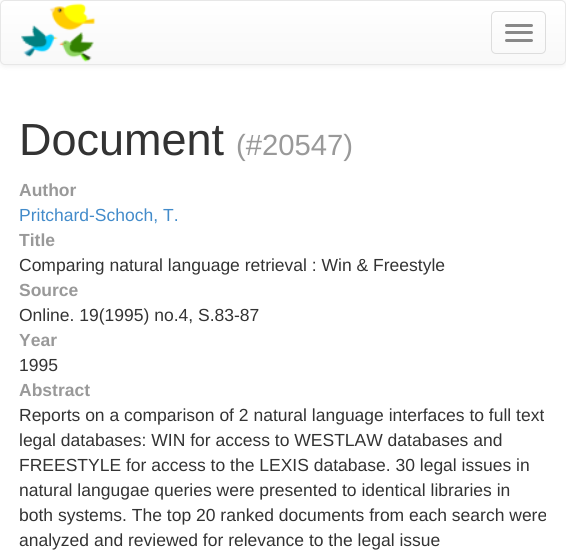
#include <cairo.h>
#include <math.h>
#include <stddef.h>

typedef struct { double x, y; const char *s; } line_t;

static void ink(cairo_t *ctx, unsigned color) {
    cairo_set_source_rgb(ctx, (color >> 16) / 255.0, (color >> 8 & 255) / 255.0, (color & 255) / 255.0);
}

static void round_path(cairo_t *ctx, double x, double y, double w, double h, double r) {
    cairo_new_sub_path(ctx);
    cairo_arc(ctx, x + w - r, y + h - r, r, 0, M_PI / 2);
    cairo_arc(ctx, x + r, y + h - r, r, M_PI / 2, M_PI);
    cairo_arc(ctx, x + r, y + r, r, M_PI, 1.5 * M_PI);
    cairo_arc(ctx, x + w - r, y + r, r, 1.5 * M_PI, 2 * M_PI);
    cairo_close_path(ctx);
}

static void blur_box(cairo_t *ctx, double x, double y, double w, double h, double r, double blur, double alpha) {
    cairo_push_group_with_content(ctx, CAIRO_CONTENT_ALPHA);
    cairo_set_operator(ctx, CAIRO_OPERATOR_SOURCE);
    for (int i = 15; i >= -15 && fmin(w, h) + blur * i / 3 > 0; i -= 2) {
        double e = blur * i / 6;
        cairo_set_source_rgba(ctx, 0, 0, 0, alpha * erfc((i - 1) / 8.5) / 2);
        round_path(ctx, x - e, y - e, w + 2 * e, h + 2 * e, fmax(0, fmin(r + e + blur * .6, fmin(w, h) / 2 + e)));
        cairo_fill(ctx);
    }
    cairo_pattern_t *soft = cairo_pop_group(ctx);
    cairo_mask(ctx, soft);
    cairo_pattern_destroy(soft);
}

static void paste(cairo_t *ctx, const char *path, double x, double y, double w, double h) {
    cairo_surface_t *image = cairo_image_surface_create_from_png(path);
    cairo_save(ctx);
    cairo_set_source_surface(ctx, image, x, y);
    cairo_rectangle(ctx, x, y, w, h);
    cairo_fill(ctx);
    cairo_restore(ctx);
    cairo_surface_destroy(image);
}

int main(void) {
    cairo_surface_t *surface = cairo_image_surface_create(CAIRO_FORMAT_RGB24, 566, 551);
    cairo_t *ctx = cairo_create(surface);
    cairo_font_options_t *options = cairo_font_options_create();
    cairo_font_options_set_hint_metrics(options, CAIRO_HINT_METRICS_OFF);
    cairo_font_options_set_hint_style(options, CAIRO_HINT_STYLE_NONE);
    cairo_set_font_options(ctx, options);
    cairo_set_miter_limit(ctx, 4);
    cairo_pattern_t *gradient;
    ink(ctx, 0xFFFFFF);
    cairo_paint(ctx);
    ink(ctx, 0x000000);
    blur_box(ctx, 0, 1, 566, 65, 5, 3, 0.07);
    cairo_save(ctx);
    round_path(ctx, 0, 0, 566, 65, 5);
    cairo_clip(ctx);
    gradient = cairo_pattern_create_linear(283, 1.2, 283, 64);
    cairo_pattern_add_color_stop_rgba(gradient, 0, 1, 1, 1, 1);
    cairo_pattern_add_color_stop_rgba(gradient, 1, 0.973, 0.973, 0.973, 1);
    cairo_set_source(ctx, gradient);
    cairo_pattern_destroy(gradient);
    cairo_rectangle(ctx, 0, 1, 566, 63);
    cairo_fill(ctx);
    cairo_restore(ctx);
    round_path(ctx, 0.5, 0.5, 565, 64, 4.5);
    ink(ctx, 0xE7E7E7);
    cairo_set_line_width(ctx, 1);
    cairo_stroke(ctx);
    paste(ctx, "media/1.png", 21, 3, 75, 59);
    round_path(ctx, 491.5, 11.5, 54, 42, 4.5);
    ink(ctx, 0xDDDDDD);
    cairo_stroke(ctx);
    ink(ctx, 0x888888);
    round_path(ctx, 505, 24, 28, 3, 1.5);
    cairo_fill(ctx);
    round_path(ctx, 505, 31, 28, 3, 1.5);
    cairo_fill(ctx);
    round_path(ctx, 505, 39, 28, 3, 1.5);
    cairo_fill(ctx);
    cairo_select_font_face(ctx, "Liberation Sans", CAIRO_FONT_SLANT_NORMAL, CAIRO_FONT_WEIGHT_NORMAL);
    cairo_set_font_size(ctx, 45);
    ink(ctx, 0x333333);
    cairo_move_to(ctx, 19, 155);
    cairo_show_text(ctx, "Document");
    cairo_set_font_size(ctx, 29.25);
    ink(ctx, 0x999999);
    cairo_move_to(ctx, 236, 155);
    cairo_show_text(ctx, "(#20547)");
    cairo_select_font_face(ctx, "Liberation Sans", CAIRO_FONT_SLANT_NORMAL, CAIRO_FONT_WEIGHT_BOLD);
    cairo_set_font_size(ctx, 17.5);
    cairo_move_to(ctx, 19, 196);
    cairo_show_text(ctx, "Author");
    cairo_select_font_face(ctx, "Liberation Sans", CAIRO_FONT_SLANT_NORMAL, CAIRO_FONT_WEIGHT_NORMAL);
    ink(ctx, 0x428BCA);
    cairo_move_to(ctx, 19, 221);
    cairo_show_text(ctx, "Pritchard-Schoch, T.");
    cairo_select_font_face(ctx, "Liberation Sans", CAIRO_FONT_SLANT_NORMAL, CAIRO_FONT_WEIGHT_BOLD);
    ink(ctx, 0x999999);
    cairo_move_to(ctx, 19, 246);
    cairo_show_text(ctx, "Title");
    cairo_select_font_face(ctx, "Liberation Sans", CAIRO_FONT_SLANT_NORMAL, CAIRO_FONT_WEIGHT_NORMAL);
    ink(ctx, 0x333333);
    cairo_move_to(ctx, 19, 271);
    cairo_show_text(ctx, "Comparing natural language retrieval : Win & Freestyle");
    cairo_select_font_face(ctx, "Liberation Sans", CAIRO_FONT_SLANT_NORMAL, CAIRO_FONT_WEIGHT_BOLD);
    ink(ctx, 0x999999);
    cairo_move_to(ctx, 19, 296);
    cairo_show_text(ctx, "Source");
    cairo_select_font_face(ctx, "Liberation Sans", CAIRO_FONT_SLANT_NORMAL, CAIRO_FONT_WEIGHT_NORMAL);
    ink(ctx, 0x333333);
    cairo_move_to(ctx, 19, 321);
    cairo_show_text(ctx, "Online. 19(1995) no.4, S.83-87");
    cairo_select_font_face(ctx, "Liberation Sans", CAIRO_FONT_SLANT_NORMAL, CAIRO_FONT_WEIGHT_BOLD);
    ink(ctx, 0x999999);
    cairo_move_to(ctx, 19, 346);
    cairo_show_text(ctx, "Year");
    cairo_select_font_face(ctx, "Liberation Sans", CAIRO_FONT_SLANT_NORMAL, CAIRO_FONT_WEIGHT_NORMAL);
    ink(ctx, 0x333333);
    cairo_move_to(ctx, 19, 371);
    cairo_show_text(ctx, "1995");
    cairo_select_font_face(ctx, "Liberation Sans", CAIRO_FONT_SLANT_NORMAL, CAIRO_FONT_WEIGHT_BOLD);
    ink(ctx, 0x999999);
    cairo_move_to(ctx, 19, 396);
    cairo_show_text(ctx, "Abstract");
    cairo_select_font_face(ctx, "Liberation Sans", CAIRO_FONT_SLANT_NORMAL, CAIRO_FONT_WEIGHT_NORMAL);
    ink(ctx, 0x333333);
    {
        static const line_t items[] = {
            {19, 421, "Reports on a comparison of 2 natural language interfaces to full text"},
            {19, 446, "legal databases: WIN for access to WESTLAW databases and"},
            {19, 471, "FREESTYLE for access to the LEXIS database. 30 legal issues in"},
            {19, 496, "natural langugae queries were presented to identical libraries in"},
            {19, 521, "both systems. The top 20 ranked documents from each search were"},
            {19, 546, "analyzed and reviewed for relevance to the legal issue"},
        };
        for (size_t i = 0; i < sizeof items / sizeof *items; i++) {
            cairo_move_to(ctx, items[i].x, items[i].y);
            cairo_show_text(ctx, items[i].s);
        }
    }
    cairo_surface_write_to_png(surface, "image.png");
    cairo_font_options_destroy(options);
    cairo_destroy(ctx);
    cairo_surface_destroy(surface);
    return 0;
}
